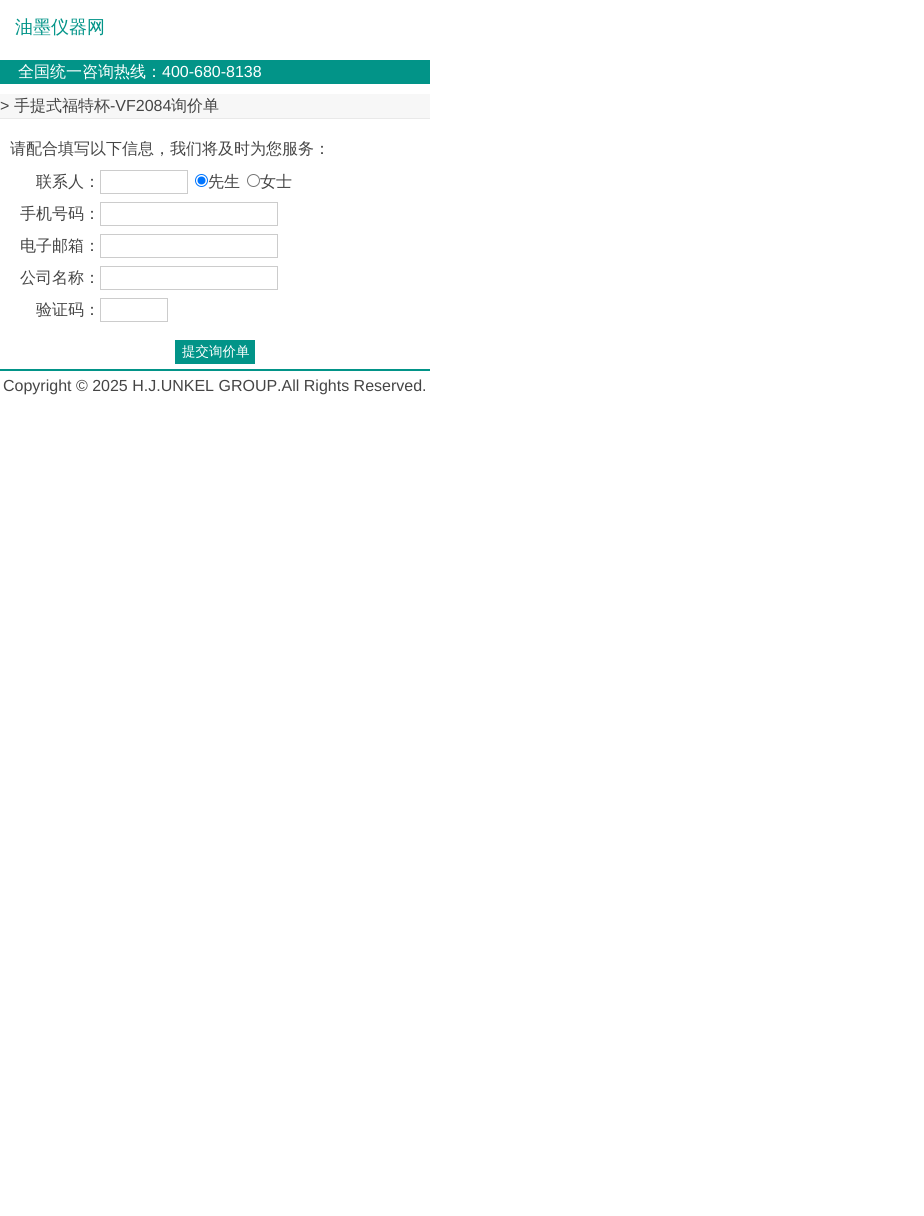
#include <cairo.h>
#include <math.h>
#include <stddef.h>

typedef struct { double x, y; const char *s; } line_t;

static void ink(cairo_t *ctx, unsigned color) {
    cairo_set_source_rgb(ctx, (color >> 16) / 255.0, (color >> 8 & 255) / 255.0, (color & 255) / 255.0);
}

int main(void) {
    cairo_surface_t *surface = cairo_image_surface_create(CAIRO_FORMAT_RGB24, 924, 1216);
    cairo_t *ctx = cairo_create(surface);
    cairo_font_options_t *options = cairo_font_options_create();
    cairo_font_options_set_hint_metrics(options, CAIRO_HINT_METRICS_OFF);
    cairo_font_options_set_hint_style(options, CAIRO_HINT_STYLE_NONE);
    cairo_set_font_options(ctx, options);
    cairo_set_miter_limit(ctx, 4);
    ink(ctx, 0xFFFFFF);
    cairo_paint(ctx);
    cairo_select_font_face(ctx, "WenQuanYi Zen Hei Medium", CAIRO_FONT_SLANT_NORMAL, CAIRO_FONT_WEIGHT_NORMAL);
    cairo_set_font_size(ctx, 18);
    ink(ctx, 0x029488);
    cairo_move_to(ctx, 15, 33);
    cairo_show_text(ctx, "油墨仪器网");
    cairo_rectangle(ctx, 0, 60, 430, 24);
    cairo_fill(ctx);
    cairo_set_font_size(ctx, 16);
    ink(ctx, 0xFFFFFF);
    cairo_move_to(ctx, 18, 77);
    cairo_show_text(ctx, "全国统一咨询热线：");
    cairo_select_font_face(ctx, "Liberation Sans", CAIRO_FONT_SLANT_NORMAL, CAIRO_FONT_WEIGHT_NORMAL);
    cairo_move_to(ctx, 162, 77);
    cairo_show_text(ctx, "400-680-8138");
    ink(ctx, 0xF7F7F7);
    cairo_rectangle(ctx, 0, 94, 430, 24);
    cairo_fill(ctx);
    ink(ctx, 0xE9E9E9);
    cairo_rectangle(ctx, 0, 118, 430, 1);
    cairo_fill(ctx);
    ink(ctx, 0x454545);
    cairo_move_to(ctx, 0, 111);
    cairo_show_text(ctx, ">");
    cairo_select_font_face(ctx, "WenQuanYi Zen Hei Medium", CAIRO_FONT_SLANT_NORMAL, CAIRO_FONT_WEIGHT_NORMAL);
    cairo_move_to(ctx, 14, 111);
    cairo_show_text(ctx, "手提式福特杯");
    cairo_select_font_face(ctx, "Liberation Sans", CAIRO_FONT_SLANT_NORMAL, CAIRO_FONT_WEIGHT_NORMAL);
    cairo_move_to(ctx, 110, 111);
    cairo_show_text(ctx, "-VF2084");
    cairo_select_font_face(ctx, "WenQuanYi Zen Hei Medium", CAIRO_FONT_SLANT_NORMAL, CAIRO_FONT_WEIGHT_NORMAL);
    {
        static const line_t items[] = {
            {171, 111, "询价单"},
            {10, 154, "请配合填写以下信息，我们将及时为您服务："},
            {36, 187, "联系人："},
        };
        for (size_t i = 0; i < sizeof items / sizeof *items; i++) {
            cairo_move_to(ctx, items[i].x, items[i].y);
            cairo_show_text(ctx, items[i].s);
        }
    }
    cairo_rectangle(ctx, 100.5, 170.5, 87, 23);
    ink(ctx, 0xCCCCCC);
    cairo_set_line_width(ctx, 1);
    cairo_stroke(ctx);
    cairo_arc(ctx, 201.5, 180.5, 6, 0, 2 * M_PI);
    ink(ctx, 0x0075FF);
    cairo_stroke(ctx);
    cairo_arc(ctx, 201.5, 180.5, 4, 0, 2 * M_PI);
    cairo_fill(ctx);
    ink(ctx, 0x454545);
    cairo_move_to(ctx, 208, 187);
    cairo_show_text(ctx, "先生");
    cairo_new_path(ctx);
    cairo_arc(ctx, 253.5, 180.5, 6, 0, 2 * M_PI);
    ink(ctx, 0x767676);
    cairo_stroke(ctx);
    ink(ctx, 0x454545);
    cairo_move_to(ctx, 260, 187);
    cairo_show_text(ctx, "女士");
    cairo_move_to(ctx, 20, 219);
    cairo_show_text(ctx, "手机号码：");
    cairo_rectangle(ctx, 100.5, 202.5, 177, 23);
    ink(ctx, 0xCCCCCC);
    cairo_stroke(ctx);
    ink(ctx, 0x454545);
    cairo_move_to(ctx, 20, 251);
    cairo_show_text(ctx, "电子邮箱：");
    cairo_rectangle(ctx, 100.5, 234.5, 177, 23);
    ink(ctx, 0xCCCCCC);
    cairo_stroke(ctx);
    ink(ctx, 0x454545);
    cairo_move_to(ctx, 20, 283);
    cairo_show_text(ctx, "公司名称：");
    cairo_rectangle(ctx, 100.5, 266.5, 177, 23);
    ink(ctx, 0xCCCCCC);
    cairo_stroke(ctx);
    ink(ctx, 0x454545);
    cairo_move_to(ctx, 36, 315);
    cairo_show_text(ctx, "验证码：");
    cairo_rectangle(ctx, 100.5, 298.5, 67, 23);
    ink(ctx, 0xCCCCCC);
    cairo_stroke(ctx);
    ink(ctx, 0x029488);
    cairo_rectangle(ctx, 175, 340, 80, 24);
    cairo_fill(ctx);
    cairo_set_font_size(ctx, 13.5);
    ink(ctx, 0xFFFFFF);
    cairo_move_to(ctx, 182, 356);
    cairo_show_text(ctx, "提交询价单");
    ink(ctx, 0x029488);
    cairo_rectangle(ctx, 0, 369, 430, 2);
    cairo_fill(ctx);
    cairo_select_font_face(ctx, "Liberation Sans", CAIRO_FONT_SLANT_NORMAL, CAIRO_FONT_WEIGHT_NORMAL);
    cairo_set_font_size(ctx, 16);
    ink(ctx, 0x454545);
    cairo_move_to(ctx, 3, 391);
    cairo_show_text(ctx, "Copyright © 2025 H.J.UNKEL GROUP.All Rights Reserved.");
    cairo_surface_write_to_png(surface, "image.png");
    cairo_font_options_destroy(options);
    cairo_destroy(ctx);
    cairo_surface_destroy(surface);
    return 0;
}
